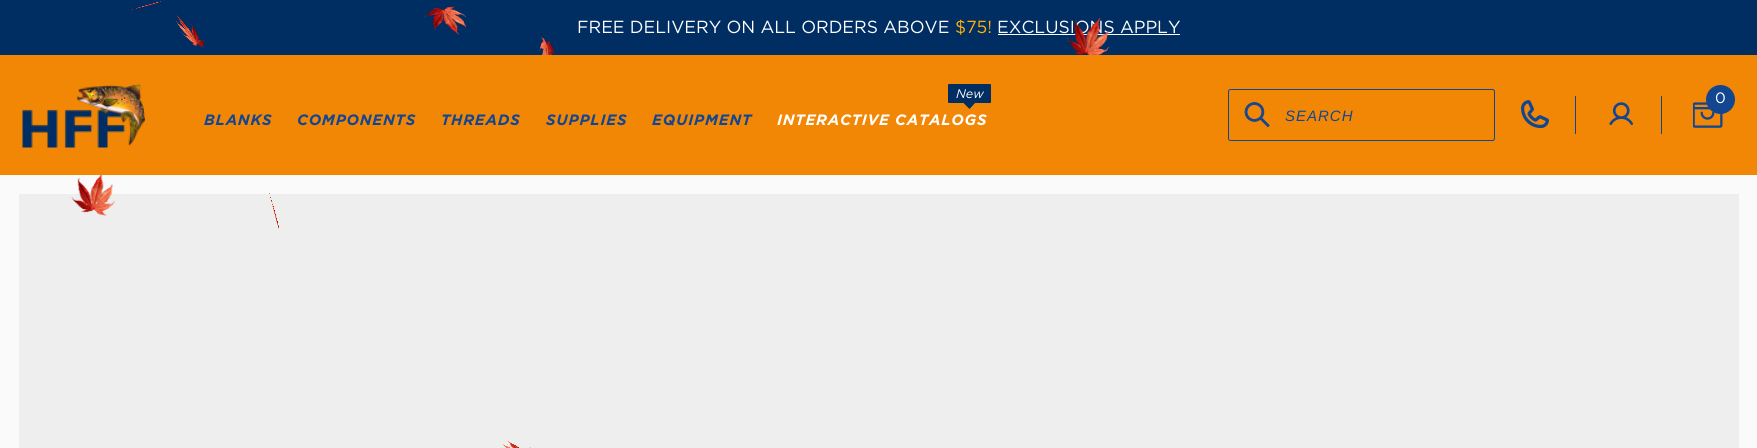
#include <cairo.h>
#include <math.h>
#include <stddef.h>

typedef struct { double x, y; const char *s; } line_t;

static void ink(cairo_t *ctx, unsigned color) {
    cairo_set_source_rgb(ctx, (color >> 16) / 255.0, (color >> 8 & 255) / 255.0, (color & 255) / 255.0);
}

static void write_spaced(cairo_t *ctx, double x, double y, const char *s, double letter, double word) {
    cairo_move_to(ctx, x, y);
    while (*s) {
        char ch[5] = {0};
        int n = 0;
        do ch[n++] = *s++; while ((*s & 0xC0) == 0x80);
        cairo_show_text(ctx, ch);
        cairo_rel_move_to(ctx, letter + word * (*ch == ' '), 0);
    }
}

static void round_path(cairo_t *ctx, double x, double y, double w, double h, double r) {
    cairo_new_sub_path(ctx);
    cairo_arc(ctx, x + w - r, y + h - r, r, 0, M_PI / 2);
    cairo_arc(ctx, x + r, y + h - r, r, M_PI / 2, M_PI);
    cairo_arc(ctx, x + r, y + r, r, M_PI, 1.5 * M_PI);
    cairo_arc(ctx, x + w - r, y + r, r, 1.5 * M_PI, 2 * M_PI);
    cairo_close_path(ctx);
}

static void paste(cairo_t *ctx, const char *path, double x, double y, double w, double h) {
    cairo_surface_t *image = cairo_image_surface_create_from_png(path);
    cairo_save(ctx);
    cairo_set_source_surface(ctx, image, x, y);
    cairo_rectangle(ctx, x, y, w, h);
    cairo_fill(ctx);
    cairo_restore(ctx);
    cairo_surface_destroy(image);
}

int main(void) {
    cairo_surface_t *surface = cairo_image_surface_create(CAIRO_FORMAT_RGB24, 1757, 448);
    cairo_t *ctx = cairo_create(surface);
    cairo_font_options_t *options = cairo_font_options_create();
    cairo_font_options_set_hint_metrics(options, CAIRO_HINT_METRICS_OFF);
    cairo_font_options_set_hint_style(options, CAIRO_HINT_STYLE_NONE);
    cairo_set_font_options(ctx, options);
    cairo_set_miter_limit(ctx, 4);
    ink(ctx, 0xFAFAFA);
    cairo_paint(ctx);
    ink(ctx, 0x002E63);
    cairo_rectangle(ctx, 0, 0, 1757, 55);
    cairo_fill(ctx);
    paste(ctx, "media/1.png", 131, 0, 33, 11);
    paste(ctx, "media/2.png", 176, 14, 29, 34);
    paste(ctx, "media/3.png", 424, 6, 43, 29);
    paste(ctx, "media/4.png", 539, 37, 17, 18);
    cairo_select_font_face(ctx, "Gotham", CAIRO_FONT_SLANT_NORMAL, CAIRO_FONT_WEIGHT_NORMAL);
    cairo_set_font_size(ctx, 17.5);
    ink(ctx, 0xFFFFFF);
    cairo_move_to(ctx, 997, 33);
    cairo_show_text(ctx, "EXCLUSIONS APPLY");
    cairo_rectangle(ctx, 998, 34, 182, 1);
    cairo_fill(ctx);
    paste(ctx, "media/5.png", 1066, 17, 44, 38);
    ink(ctx, 0xEEEEEE);
    cairo_rectangle(ctx, 19, 194, 1720, 254);
    cairo_fill(ctx);
    paste(ctx, "media/6.png", 71, 175, 45, 41);
    paste(ctx, "media/7.png", 269, 193, 10, 36);
    paste(ctx, "media/8.png", 502, 440, 29, 8);
    ink(ctx, 0xFFFFFF);
    cairo_move_to(ctx, 577, 33);
    cairo_show_text(ctx, "FREE DELIVERY ON ALL ORDERS ABOVE");
    ink(ctx, 0xFFB204);
    cairo_move_to(ctx, 955, 33);
    cairo_show_text(ctx, "$75!");
    ink(ctx, 0xF28705);
    cairo_rectangle(ctx, 0, 55, 1757, 120);
    cairo_fill(ctx);
    paste(ctx, "media/9.png", 22, 84, 123, 64);
    cairo_select_font_face(ctx, "Gotham", CAIRO_FONT_SLANT_ITALIC, CAIRO_FONT_WEIGHT_BOLD);
    cairo_set_font_size(ctx, 15);
    ink(ctx, 0x134690);
    {
        static const line_t items[] = {
            {204, 125, "BLANKS"},
            {297, 125, "COMPONENTS"},
            {441, 125, "THREADS"},
            {546, 125, "SUPPLIES"},
            {652, 125, "EQUIPMENT"},
        };
        for (size_t i = 0; i < sizeof items / sizeof *items; i++) {
            write_spaced(ctx, items[i].x, items[i].y, items[i].s, 0.75, 0);
        }
    }
    ink(ctx, 0x002E63);
    round_path(ctx, 948, 84, 43, 19, 1);
    cairo_fill(ctx);
    cairo_select_font_face(ctx, "Gotham", CAIRO_FONT_SLANT_ITALIC, CAIRO_FONT_WEIGHT_NORMAL);
    cairo_set_font_size(ctx, 12.5);
    ink(ctx, 0xFFFFFF);
    cairo_move_to(ctx, 956, 98);
    cairo_show_text(ctx, "New");
    ink(ctx, 0x002E63);
    cairo_new_path(ctx);
    cairo_move_to(ctx, 963, 102.5);
    cairo_line_to(ctx, 975.5, 102.5);
    cairo_line_to(ctx, 969.5, 109);
    cairo_close_path(ctx);
    cairo_fill(ctx);
    cairo_select_font_face(ctx, "Gotham", CAIRO_FONT_SLANT_ITALIC, CAIRO_FONT_WEIGHT_BOLD);
    cairo_set_font_size(ctx, 15);
    ink(ctx, 0xFFFFFF);
    write_spaced(ctx, 777, 125, "INTERACTIVE CATALOGS", 0.75, 0);
    round_path(ctx, 1228.5, 89.5, 266, 51, 2);
    ink(ctx, 0x134690);
    cairo_set_line_width(ctx, 1);
    cairo_stroke(ctx);
    paste(ctx, "media/10.png", 1244, 102, 26, 26);
    cairo_select_font_face(ctx, "Liberation Sans", CAIRO_FONT_SLANT_ITALIC, CAIRO_FONT_WEIGHT_NORMAL);
    write_spaced(ctx, 1285, 121, "SEARCH", 1, 0);
    paste(ctx, "media/11.png", 1521, 100, 28, 29);
    cairo_rectangle(ctx, 1575, 96, 1, 38);
    cairo_fill(ctx);
    paste(ctx, "media/12.png", 1609, 102, 24, 24);
    cairo_rectangle(ctx, 1661, 96, 1, 38);
    cairo_fill(ctx);
    paste(ctx, "media/13.png", 1693, 102, 30, 26);
    cairo_arc(ctx, 1720.5, 99.5, 14.5, 0, 2 * M_PI);
    cairo_fill(ctx);
    cairo_select_font_face(ctx, "Gotham", CAIRO_FONT_SLANT_NORMAL, CAIRO_FONT_WEIGHT_NORMAL);
    ink(ctx, 0xFFFFFF);
    cairo_move_to(ctx, 1715, 103);
    cairo_show_text(ctx, "0");
    cairo_surface_write_to_png(surface, "image.png");
    cairo_font_options_destroy(options);
    cairo_destroy(ctx);
    cairo_surface_destroy(surface);
    return 0;
}
